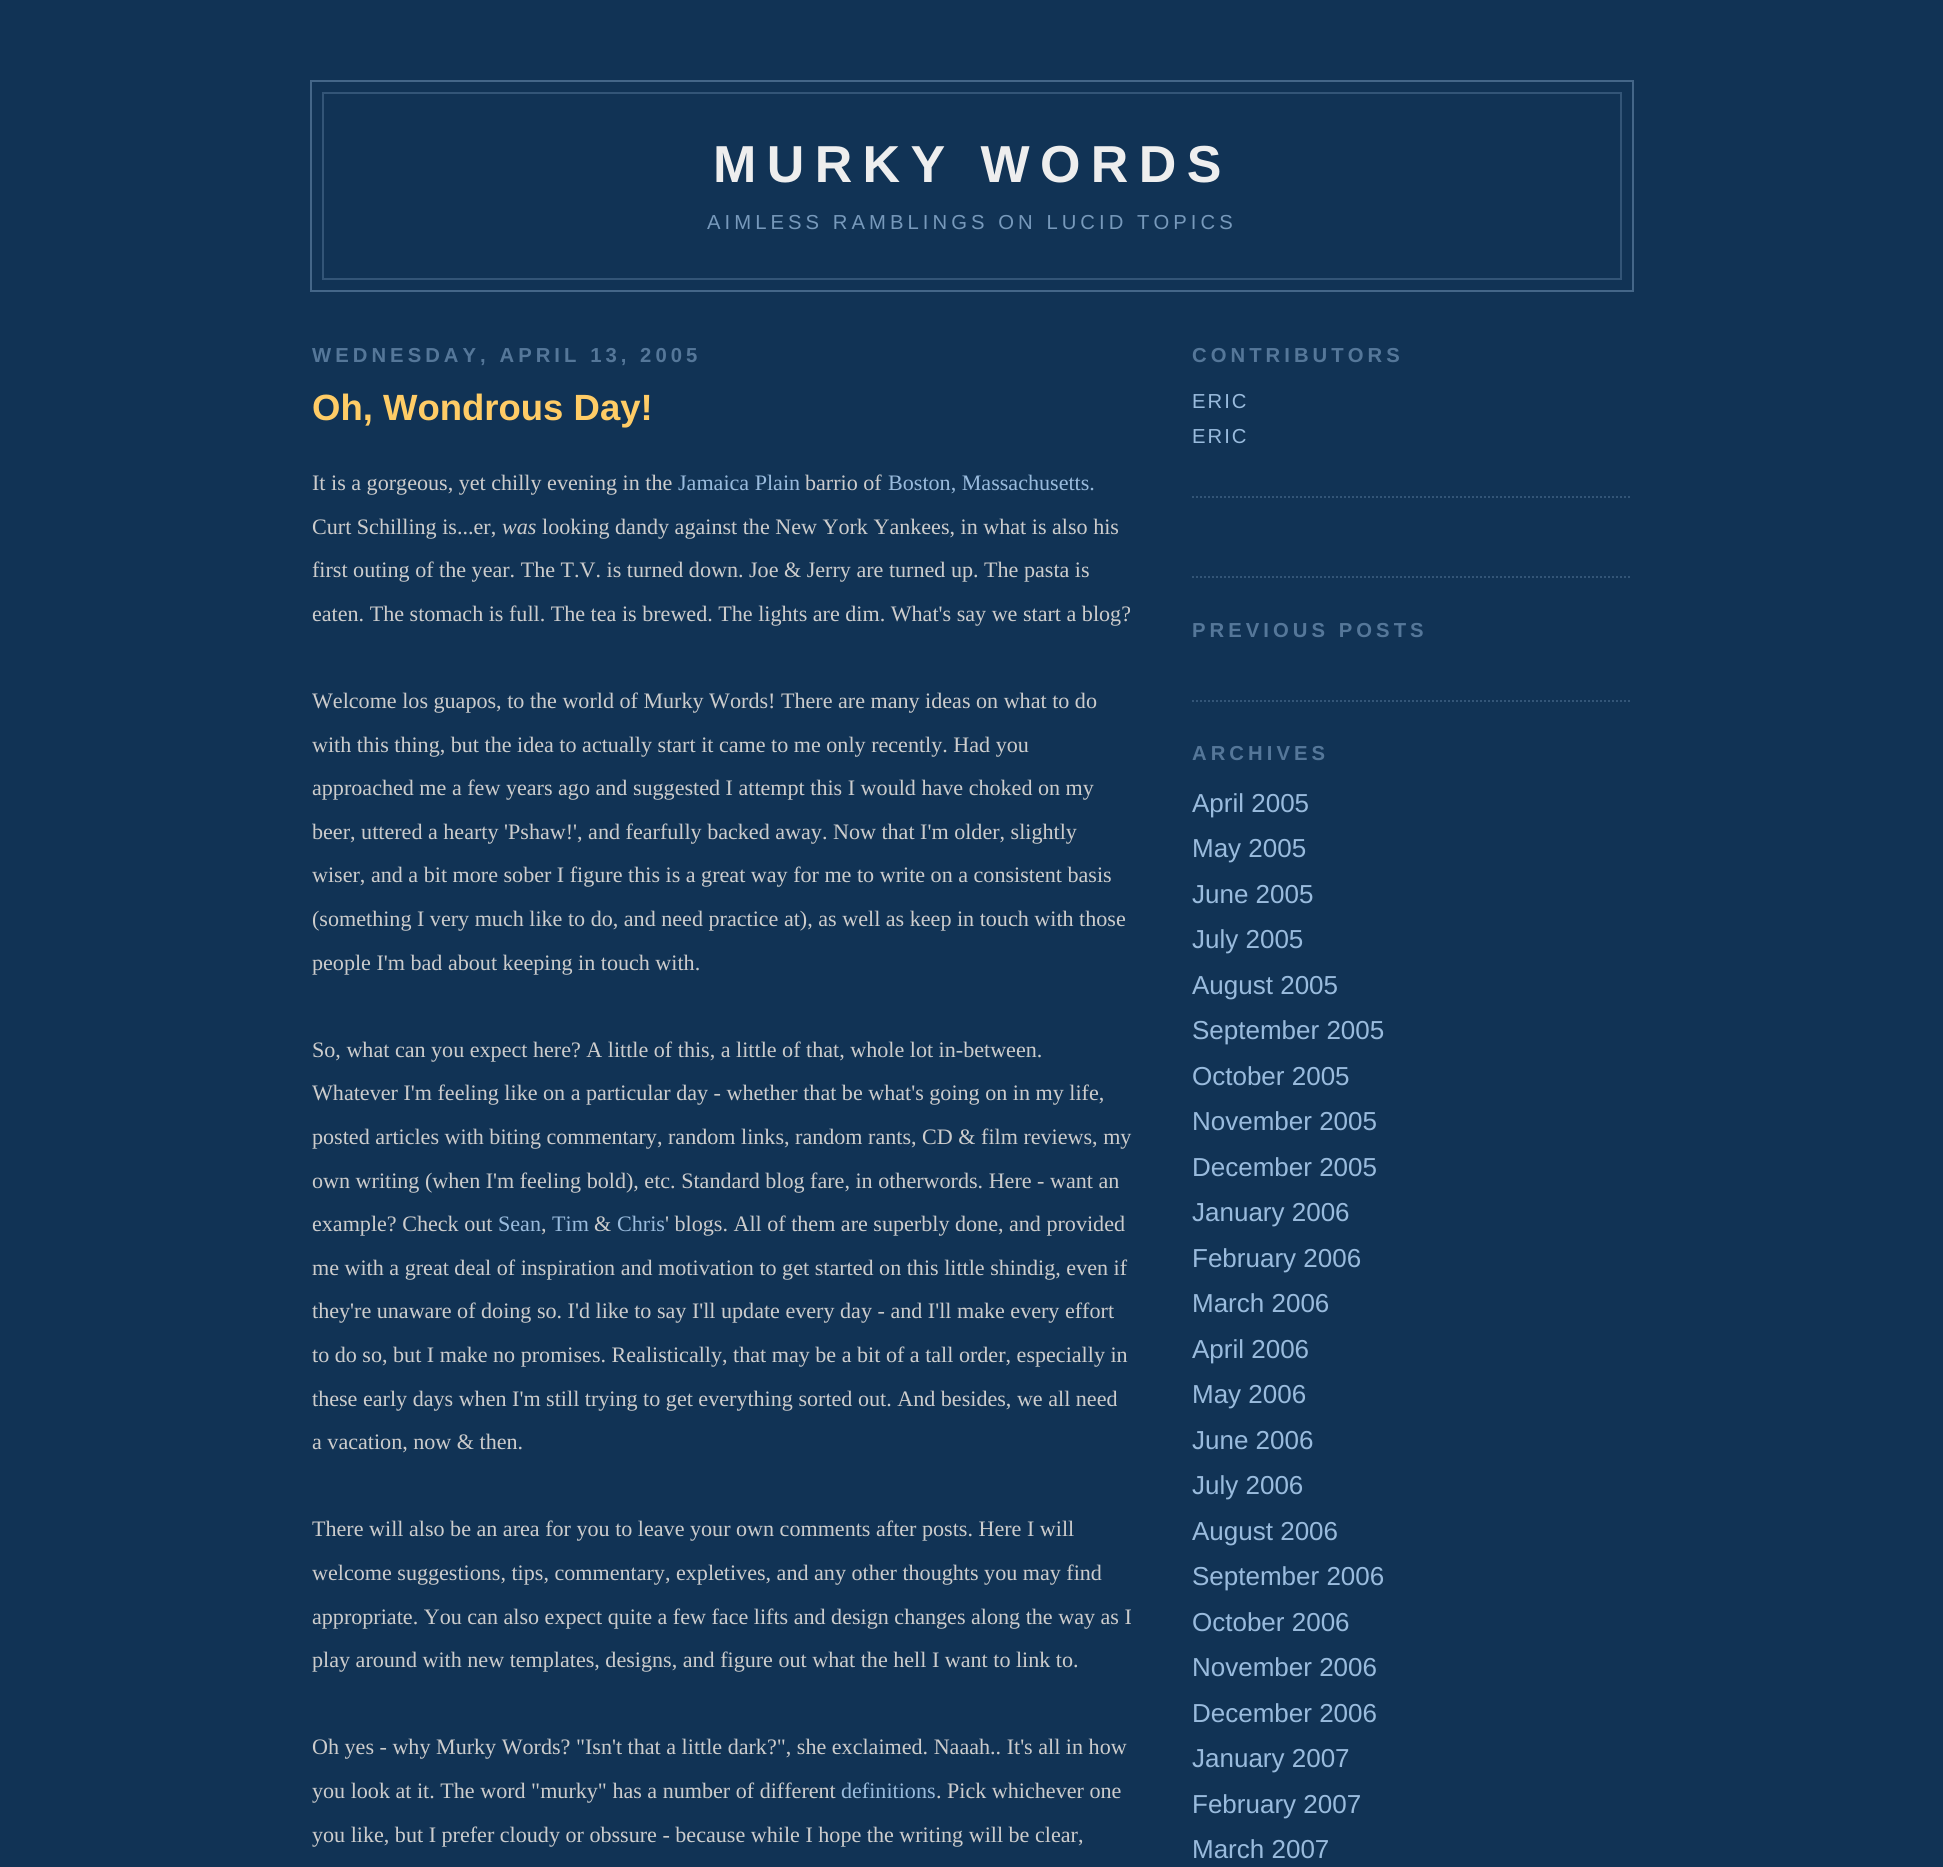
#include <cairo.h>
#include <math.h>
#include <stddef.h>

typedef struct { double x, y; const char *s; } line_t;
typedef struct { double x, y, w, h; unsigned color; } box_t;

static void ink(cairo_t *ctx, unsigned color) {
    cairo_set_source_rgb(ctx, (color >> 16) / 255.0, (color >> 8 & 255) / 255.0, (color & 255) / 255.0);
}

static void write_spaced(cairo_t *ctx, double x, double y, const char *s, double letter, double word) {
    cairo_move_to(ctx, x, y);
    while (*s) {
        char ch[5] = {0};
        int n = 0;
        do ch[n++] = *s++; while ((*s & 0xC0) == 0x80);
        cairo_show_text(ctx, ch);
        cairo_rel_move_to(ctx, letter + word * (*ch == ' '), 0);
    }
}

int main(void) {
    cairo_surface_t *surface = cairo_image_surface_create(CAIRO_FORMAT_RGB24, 1943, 1867);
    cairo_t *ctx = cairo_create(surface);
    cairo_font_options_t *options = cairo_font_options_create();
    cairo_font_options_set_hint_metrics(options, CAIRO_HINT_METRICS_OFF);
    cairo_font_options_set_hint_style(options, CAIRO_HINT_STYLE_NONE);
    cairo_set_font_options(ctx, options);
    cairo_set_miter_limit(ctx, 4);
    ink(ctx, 0x113355);
    cairo_paint(ctx);
    cairo_rectangle(ctx, 311, 81, 1322, 210);
    ink(ctx, 0x446688);
    cairo_stroke(ctx);
    {
        static const box_t items[] = {
            {322, 92, 1300, 2, 0x335577},
            {1620, 92, 2, 188, 0x335577},
            {322, 92, 2, 118, 0x335577},
        };
        for (size_t i = 0; i < sizeof items / sizeof *items; i++) {
            ink(ctx, items[i].color);
            cairo_rectangle(ctx, items[i].x, items[i].y, items[i].w, items[i].h);
            cairo_fill(ctx);
        }
    }
    cairo_select_font_face(ctx, "Liberation Sans", CAIRO_FONT_SLANT_NORMAL, CAIRO_FONT_WEIGHT_BOLD);
    cairo_set_font_size(ctx, 52);
    ink(ctx, 0xEEEEEE);
    write_spaced(ctx, 713, 182, "MURKY WORDS", 10.4, 0);
    ink(ctx, 0x335577);
    cairo_rectangle(ctx, 322, 278, 1300, 2);
    cairo_fill(ctx);
    cairo_rectangle(ctx, 322, 210, 2, 70);
    cairo_fill(ctx);
    cairo_select_font_face(ctx, "Liberation Sans", CAIRO_FONT_SLANT_NORMAL, CAIRO_FONT_WEIGHT_NORMAL);
    cairo_set_font_size(ctx, 20.25);
    ink(ctx, 0x7799BB);
    write_spaced(ctx, 707, 229, "AIMLESS RAMBLINGS ON LUCID TOPICS", 4.05, 0);
    cairo_select_font_face(ctx, "Liberation Sans", CAIRO_FONT_SLANT_NORMAL, CAIRO_FONT_WEIGHT_BOLD);
    ink(ctx, 0x557799);
    write_spaced(ctx, 312, 362, "WEDNESDAY, APRIL 13, 2005", 4.05, 0);
    cairo_set_font_size(ctx, 36.5);
    ink(ctx, 0xFFCC66);
    cairo_move_to(ctx, 312, 420);
    cairo_show_text(ctx, "Oh, Wondrous Day!");
    cairo_select_font_face(ctx, "Liberation Serif", CAIRO_FONT_SLANT_NORMAL, CAIRO_FONT_WEIGHT_NORMAL);
    cairo_set_font_size(ctx, 22.1);
    ink(ctx, 0xCCCCCC);
    cairo_move_to(ctx, 312, 490);
    cairo_show_text(ctx, "It is a gorgeous, yet chilly evening in the");
    ink(ctx, 0x99BBDD);
    cairo_move_to(ctx, 678, 490);
    cairo_show_text(ctx, "Jamaica Plain");
    ink(ctx, 0xCCCCCC);
    cairo_move_to(ctx, 805, 490);
    cairo_show_text(ctx, "barrio of");
    ink(ctx, 0x99BBDD);
    cairo_move_to(ctx, 888, 490);
    cairo_show_text(ctx, "Boston, Massachusetts.");
    ink(ctx, 0xCCCCCC);
    cairo_move_to(ctx, 312, 534);
    cairo_show_text(ctx, "Curt Schilling is...er,");
    cairo_select_font_face(ctx, "Liberation Serif", CAIRO_FONT_SLANT_ITALIC, CAIRO_FONT_WEIGHT_NORMAL);
    cairo_move_to(ctx, 502, 534);
    cairo_show_text(ctx, "was");
    cairo_select_font_face(ctx, "Liberation Serif", CAIRO_FONT_SLANT_NORMAL, CAIRO_FONT_WEIGHT_NORMAL);
    {
        static const line_t items[] = {
            {542, 534, "looking dandy against the New York Yankees, in what is also his"},
            {312, 577, "first outing of the year. The T.V. is turned down. Joe & Jerry are turned up. The pasta is"},
            {312, 621, "eaten. The stomach is full. The tea is brewed. The lights are dim. What's say we start a blog?"},
            {312, 708, "Welcome los guapos, to the world of Murky Words! There are many ideas on what to do"},
            {312, 752, "with this thing, but the idea to actually start it came to me only recently. Had you"},
            {312, 795, "approached me a few years ago and suggested I attempt this I would have choked on my"},
            {312, 839, "beer, uttered a hearty 'Pshaw!', and fearfully backed away. Now that I'm older, slightly"},
            {312, 882, "wiser, and a bit more sober I figure this is a great way for me to write on a consistent basis"},
            {312, 926, "(something I very much like to do, and need practice at), as well as keep in touch with those"},
            {312, 970, "people I'm bad about keeping in touch with."},
            {312, 1057, "So, what can you expect here? A little of this, a little of that, whole lot in-between."},
            {312, 1100, "Whatever I'm feeling like on a particular day - whether that be what's going on in my life,"},
            {312, 1144, "posted articles with biting commentary, random links, random rants, CD & film reviews, my"},
            {312, 1188, "own writing (when I'm feeling bold), etc. Standard blog fare, in otherwords. Here - want an"},
            {312, 1231, "example? Check out"},
        };
        for (size_t i = 0; i < sizeof items / sizeof *items; i++) {
            cairo_move_to(ctx, items[i].x, items[i].y);
            cairo_show_text(ctx, items[i].s);
        }
    }
    ink(ctx, 0x99BBDD);
    cairo_move_to(ctx, 498, 1231);
    cairo_show_text(ctx, "Sean");
    ink(ctx, 0xCCCCCC);
    cairo_move_to(ctx, 541, 1231);
    cairo_show_text(ctx, ",");
    ink(ctx, 0x99BBDD);
    cairo_move_to(ctx, 552, 1231);
    cairo_show_text(ctx, "Tim");
    ink(ctx, 0xCCCCCC);
    cairo_move_to(ctx, 594, 1231);
    cairo_show_text(ctx, "&");
    ink(ctx, 0x99BBDD);
    cairo_move_to(ctx, 617, 1231);
    cairo_show_text(ctx, "Chris");
    ink(ctx, 0xCCCCCC);
    {
        static const line_t items[] = {
            {665, 1231, "' blogs. All of them are superbly done, and provided"},
            {312, 1275, "me with a great deal of inspiration and motivation to get started on this little shindig, even if"},
            {312, 1318, "they're unaware of doing so. I'd like to say I'll update every day - and I'll make every effort"},
            {312, 1362, "to do so, but I make no promises. Realistically, that may be a bit of a tall order, especially in"},
            {312, 1406, "these early days when I'm still trying to get everything sorted out. And besides, we all need"},
            {312, 1449, "a vacation, now & then."},
            {312, 1536, "There will also be an area for you to leave your own comments after posts. Here I will"},
            {312, 1580, "welcome suggestions, tips, commentary, expletives, and any other thoughts you may find"},
            {312, 1624, "appropriate. You can also expect quite a few face lifts and design changes along the way as I"},
            {312, 1667, "play around with new templates, designs, and figure out what the hell I want to link to."},
            {312, 1754, "Oh yes - why Murky Words? \"Isn't that a little dark?\", she exclaimed. Naaah.. It's all in how"},
            {312, 1798, "you look at it. The word \"murky\" has a number of different"},
        };
        for (size_t i = 0; i < sizeof items / sizeof *items; i++) {
            cairo_move_to(ctx, items[i].x, items[i].y);
            cairo_show_text(ctx, items[i].s);
        }
    }
    ink(ctx, 0x99BBDD);
    cairo_move_to(ctx, 841, 1798);
    cairo_show_text(ctx, "definitions");
    ink(ctx, 0xCCCCCC);
    cairo_move_to(ctx, 936, 1798);
    cairo_show_text(ctx, ". Pick whichever one");
    cairo_move_to(ctx, 312, 1842);
    cairo_show_text(ctx, "you like, but I prefer cloudy or obssure - because while I hope the writing will be clear,");
    cairo_new_path(ctx);
    cairo_move_to(ctx, 1192, 577);
    cairo_line_to(ctx, 1632, 577);
    ink(ctx, 0x335577);
    cairo_set_dash(ctx, (double[]){2, 2}, 2, 0);
    cairo_stroke(ctx);
    cairo_select_font_face(ctx, "Liberation Sans", CAIRO_FONT_SLANT_NORMAL, CAIRO_FONT_WEIGHT_BOLD);
    cairo_set_font_size(ctx, 20.25);
    ink(ctx, 0x557799);
    write_spaced(ctx, 1192, 362, "CONTRIBUTORS", 4.05, 0);
    cairo_new_path(ctx);
    cairo_move_to(ctx, 1192, 497);
    cairo_line_to(ctx, 1632, 497);
    ink(ctx, 0x335577);
    cairo_stroke(ctx);
    cairo_select_font_face(ctx, "Liberation Sans", CAIRO_FONT_SLANT_NORMAL, CAIRO_FONT_WEIGHT_NORMAL);
    ink(ctx, 0x99BBDD);
    write_spaced(ctx, 1192, 408, "ERIC", 2, 0);
    write_spaced(ctx, 1192, 443, "ERIC", 2, 0);
    cairo_select_font_face(ctx, "Liberation Sans", CAIRO_FONT_SLANT_NORMAL, CAIRO_FONT_WEIGHT_BOLD);
    ink(ctx, 0x557799);
    write_spaced(ctx, 1192, 637, "PREVIOUS POSTS", 4.05, 0);
    cairo_new_path(ctx);
    cairo_move_to(ctx, 1192, 701);
    cairo_line_to(ctx, 1632, 701);
    ink(ctx, 0x335577);
    cairo_stroke(ctx);
    ink(ctx, 0x557799);
    write_spaced(ctx, 1192, 760, "ARCHIVES", 4.05, 0);
    cairo_select_font_face(ctx, "Liberation Sans", CAIRO_FONT_SLANT_NORMAL, CAIRO_FONT_WEIGHT_NORMAL);
    cairo_set_font_size(ctx, 26);
    ink(ctx, 0x99BBDD);
    {
        static const line_t items[] = {
            {1192, 812, "April 2005"},
            {1192, 857, "May 2005"},
            {1192, 903, "June 2005"},
            {1192, 948, "July 2005"},
            {1192, 994, "August 2005"},
            {1192, 1039, "September 2005"},
            {1192, 1085, "October 2005"},
            {1192, 1130, "November 2005"},
            {1192, 1176, "December 2005"},
            {1192, 1221, "January 2006"},
            {1192, 1267, "February 2006"},
            {1192, 1312, "March 2006"},
            {1192, 1358, "April 2006"},
            {1192, 1403, "May 2006"},
            {1192, 1449, "June 2006"},
            {1192, 1494, "July 2006"},
            {1192, 1540, "August 2006"},
            {1192, 1585, "September 2006"},
            {1192, 1631, "October 2006"},
            {1192, 1676, "November 2006"},
            {1192, 1722, "December 2006"},
            {1192, 1767, "January 2007"},
            {1192, 1813, "February 2007"},
            {1192, 1858, "March 2007"},
        };
        for (size_t i = 0; i < sizeof items / sizeof *items; i++) {
            cairo_move_to(ctx, items[i].x, items[i].y);
            cairo_show_text(ctx, items[i].s);
        }
    }
    cairo_surface_write_to_png(surface, "image.png");
    cairo_font_options_destroy(options);
    cairo_destroy(ctx);
    cairo_surface_destroy(surface);
    return 0;
}
